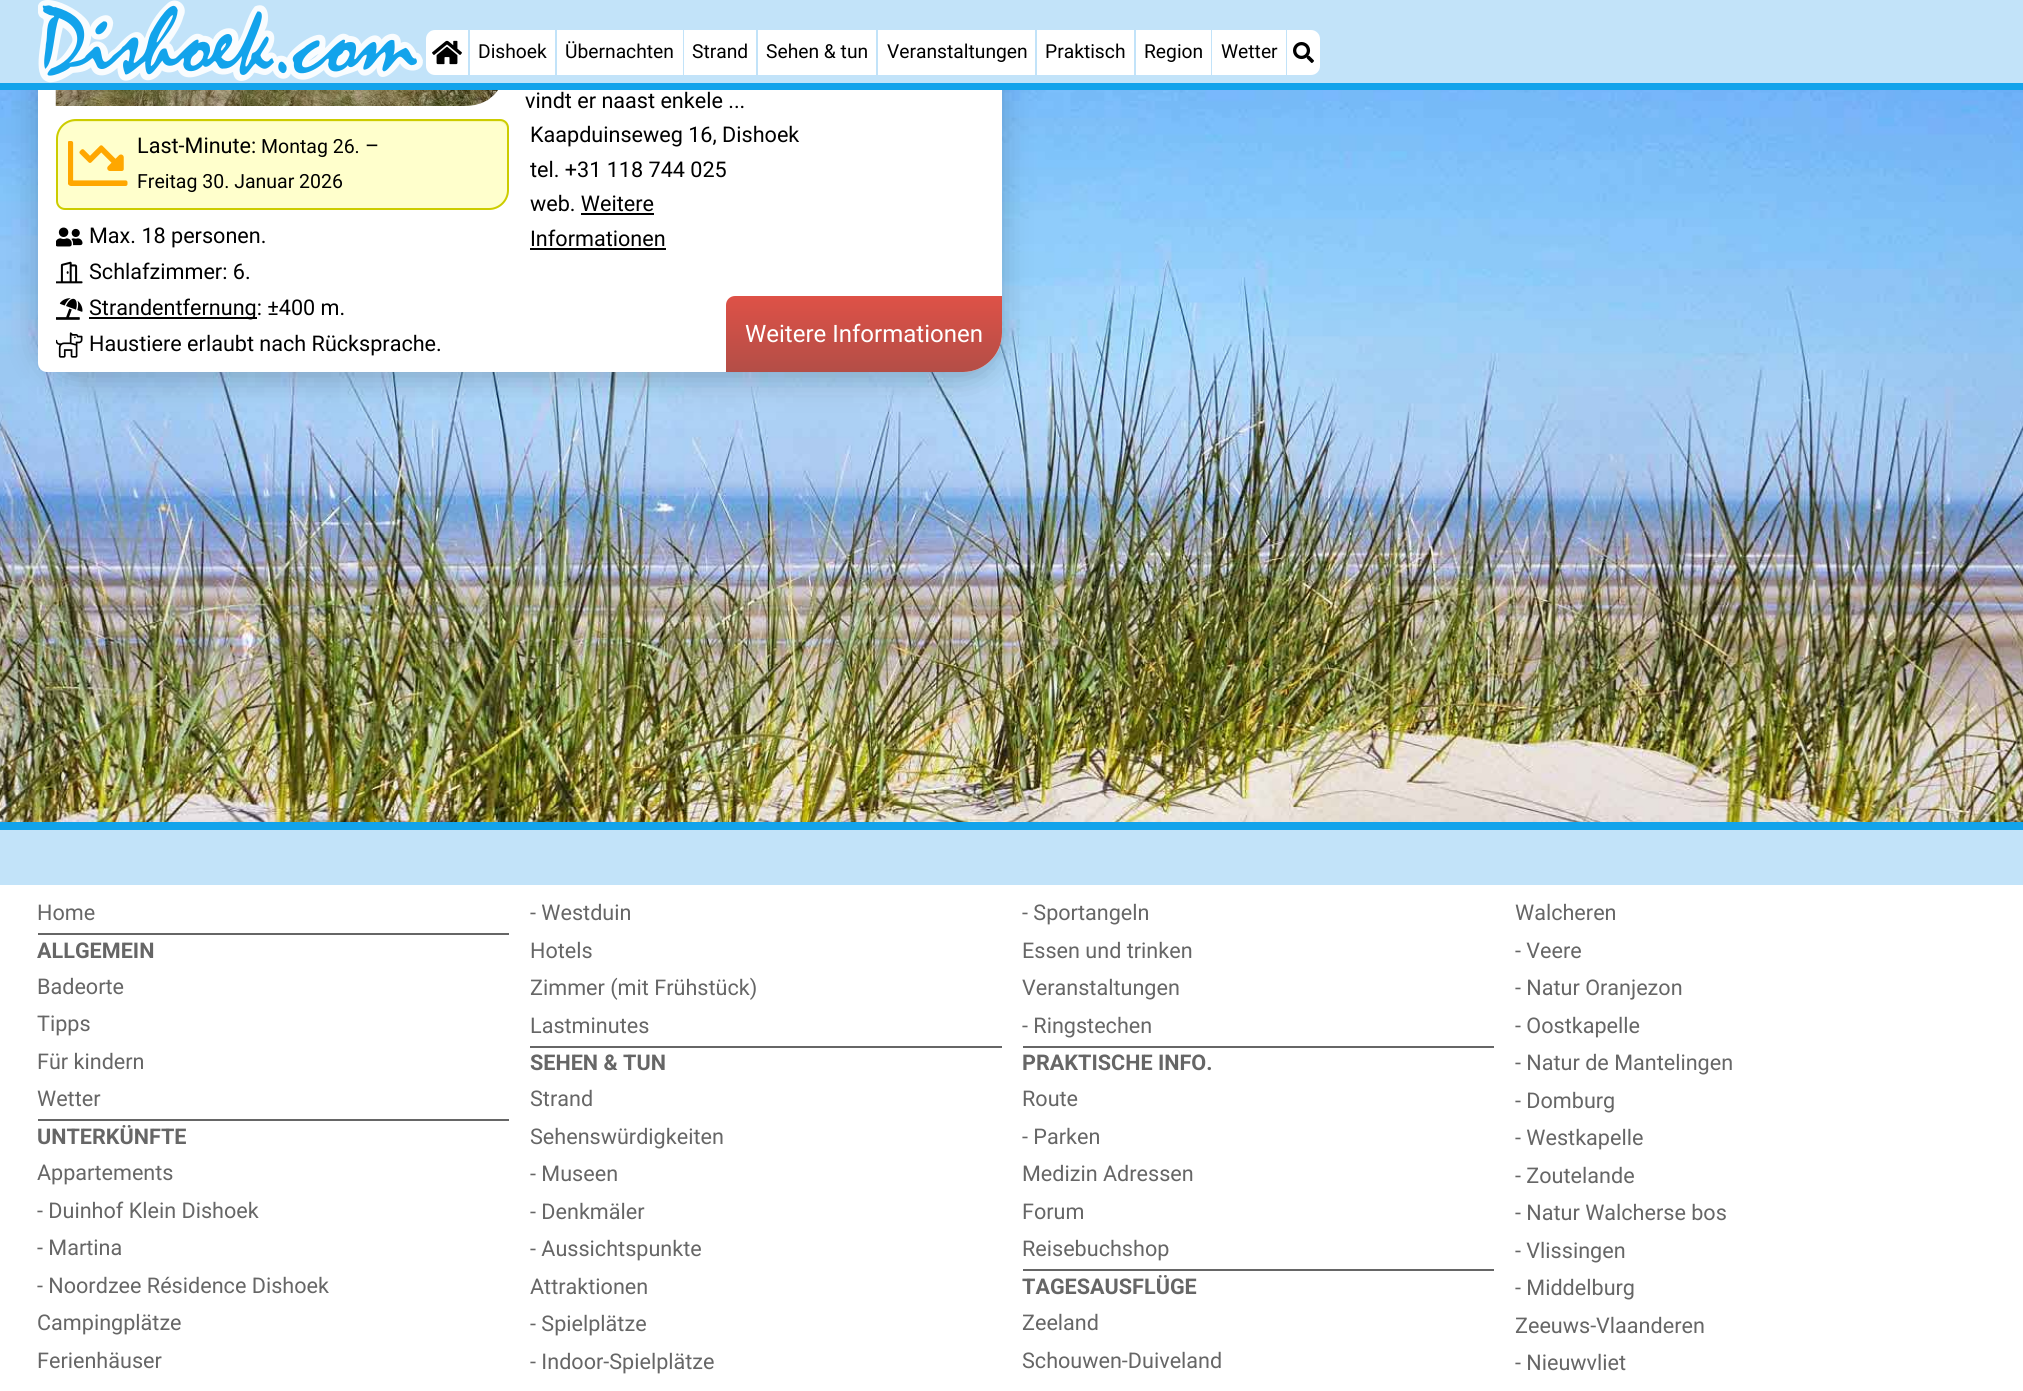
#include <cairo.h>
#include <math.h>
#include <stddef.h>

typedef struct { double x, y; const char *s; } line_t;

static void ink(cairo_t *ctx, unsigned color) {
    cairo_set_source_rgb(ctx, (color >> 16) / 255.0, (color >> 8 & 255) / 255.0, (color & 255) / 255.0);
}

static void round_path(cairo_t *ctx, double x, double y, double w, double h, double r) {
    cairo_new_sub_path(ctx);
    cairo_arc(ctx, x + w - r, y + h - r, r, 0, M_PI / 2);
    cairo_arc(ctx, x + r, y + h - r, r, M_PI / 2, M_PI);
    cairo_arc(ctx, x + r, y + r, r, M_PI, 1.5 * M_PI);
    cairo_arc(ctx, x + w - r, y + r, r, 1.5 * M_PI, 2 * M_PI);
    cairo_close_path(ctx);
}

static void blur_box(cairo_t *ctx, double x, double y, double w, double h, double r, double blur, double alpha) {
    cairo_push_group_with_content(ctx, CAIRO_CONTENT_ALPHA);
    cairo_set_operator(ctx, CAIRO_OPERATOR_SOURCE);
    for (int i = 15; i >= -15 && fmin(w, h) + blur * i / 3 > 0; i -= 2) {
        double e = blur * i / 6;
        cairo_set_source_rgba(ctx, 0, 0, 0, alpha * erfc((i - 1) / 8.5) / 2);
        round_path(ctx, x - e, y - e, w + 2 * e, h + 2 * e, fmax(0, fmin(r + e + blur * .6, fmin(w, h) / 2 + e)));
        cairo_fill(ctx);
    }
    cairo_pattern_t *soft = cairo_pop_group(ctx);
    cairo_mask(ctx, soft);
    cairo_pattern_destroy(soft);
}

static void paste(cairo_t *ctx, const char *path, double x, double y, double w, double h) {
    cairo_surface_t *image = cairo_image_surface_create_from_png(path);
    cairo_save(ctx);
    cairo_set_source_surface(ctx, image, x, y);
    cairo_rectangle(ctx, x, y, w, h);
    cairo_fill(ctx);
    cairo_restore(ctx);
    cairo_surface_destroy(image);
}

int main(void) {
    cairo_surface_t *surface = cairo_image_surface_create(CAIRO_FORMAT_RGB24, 2023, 1391);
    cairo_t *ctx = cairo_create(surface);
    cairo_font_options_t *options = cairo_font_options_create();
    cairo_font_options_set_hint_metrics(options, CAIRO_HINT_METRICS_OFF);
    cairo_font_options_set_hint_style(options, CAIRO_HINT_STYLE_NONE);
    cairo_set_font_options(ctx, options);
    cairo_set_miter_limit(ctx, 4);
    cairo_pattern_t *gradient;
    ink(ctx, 0xFFFFFF);
    cairo_paint(ctx);
    paste(ctx, "media/4.png", 0, 90, 2023, 732);
    ink(ctx, 0x000000);
    blur_box(ctx, 38, -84, 964, 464, 39, 15, 0.2);
    ink(ctx, 0xFFFFFF);
    cairo_new_path(ctx);
    cairo_move_to(ctx, 77, -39);
    cairo_line_to(ctx, 993, -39);
    cairo_curve_to(ctx, 998, -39, 1002, -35, 1002, -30);
    cairo_line_to(ctx, 1002, 333);
    cairo_curve_to(ctx, 1002, 354.5, 984.5, 372, 963, 372);
    cairo_line_to(ctx, 47, 372);
    cairo_curve_to(ctx, 42, 372, 38, 368, 38, 363);
    cairo_line_to(ctx, 38, 0);
    cairo_curve_to(ctx, 38, -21.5, 55.5, -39, 77, -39);
    cairo_close_path(ctx);
    cairo_fill(ctx);
    ink(ctx, 0xC2E3F9);
    cairo_rectangle(ctx, 0, 0, 2023, 83);
    cairo_fill(ctx);
    ink(ctx, 0x12A3EB);
    cairo_rectangle(ctx, 0, 83, 2023, 7);
    cairo_fill(ctx);
    paste(ctx, "media/1.png", 38, 0, 385, 83);
    ink(ctx, 0xFFFFFF);
    cairo_new_path(ctx);
    cairo_move_to(ctx, 435, 30);
    cairo_line_to(ctx, 468, 30);
    cairo_line_to(ctx, 468, 75);
    cairo_line_to(ctx, 435, 75);
    cairo_curve_to(ctx, 430, 75, 426, 71, 426, 66);
    cairo_line_to(ctx, 426, 39);
    cairo_curve_to(ctx, 426, 34, 430, 30, 435, 30);
    cairo_close_path(ctx);
    cairo_fill(ctx);
    paste(ctx, "media/2.png", 432, 40, 30, 25);
    cairo_rectangle(ctx, 470, 30, 85, 45);
    cairo_fill(ctx);
    cairo_select_font_face(ctx, "Roboto", CAIRO_FONT_SLANT_NORMAL, CAIRO_FONT_WEIGHT_NORMAL);
    cairo_set_font_size(ctx, 19.25);
    ink(ctx, 0x000000);
    cairo_move_to(ctx, 478, 58);
    cairo_show_text(ctx, "Dishoek");
    ink(ctx, 0xFFFFFF);
    cairo_rectangle(ctx, 557, 30, 126, 45);
    cairo_fill(ctx);
    ink(ctx, 0x000000);
    cairo_move_to(ctx, 565, 58);
    cairo_show_text(ctx, "Übernachten");
    ink(ctx, 0xFFFFFF);
    cairo_rectangle(ctx, 684, 30, 72, 45);
    cairo_fill(ctx);
    ink(ctx, 0x000000);
    cairo_move_to(ctx, 692, 58);
    cairo_show_text(ctx, "Strand");
    ink(ctx, 0xFFFFFF);
    cairo_rectangle(ctx, 758, 30, 118, 45);
    cairo_fill(ctx);
    ink(ctx, 0x000000);
    cairo_move_to(ctx, 766, 58);
    cairo_show_text(ctx, "Sehen & tun");
    ink(ctx, 0xFFFFFF);
    cairo_rectangle(ctx, 878, 30, 157, 45);
    cairo_fill(ctx);
    ink(ctx, 0x000000);
    cairo_move_to(ctx, 887, 58);
    cairo_show_text(ctx, "Veranstaltungen");
    ink(ctx, 0xFFFFFF);
    cairo_rectangle(ctx, 1037, 30, 97, 45);
    cairo_fill(ctx);
    ink(ctx, 0x000000);
    cairo_move_to(ctx, 1045, 58);
    cairo_show_text(ctx, "Praktisch");
    ink(ctx, 0xFFFFFF);
    cairo_rectangle(ctx, 1136, 30, 75, 45);
    cairo_fill(ctx);
    ink(ctx, 0x000000);
    cairo_move_to(ctx, 1144, 58);
    cairo_show_text(ctx, "Region");
    ink(ctx, 0xFFFFFF);
    cairo_rectangle(ctx, 1212, 30, 74, 45);
    cairo_fill(ctx);
    ink(ctx, 0x000000);
    cairo_move_to(ctx, 1221, 58);
    cairo_show_text(ctx, "Wetter");
    ink(ctx, 0xFFFFFF);
    cairo_new_path(ctx);
    cairo_move_to(ctx, 1287, 30);
    cairo_line_to(ctx, 1311, 30);
    cairo_curve_to(ctx, 1316, 30, 1320, 34, 1320, 39);
    cairo_line_to(ctx, 1320, 66);
    cairo_curve_to(ctx, 1320, 71, 1316, 75, 1311, 75);
    cairo_line_to(ctx, 1287, 75);
    cairo_close_path(ctx);
    cairo_fill(ctx);
    paste(ctx, "media/3.png", 1293, 42, 21, 21);
    paste(ctx, "media/5.png", 55, 90, 443, 16);
    cairo_set_font_size(ctx, 21.6);
    ink(ctx, 0x000000);
    cairo_move_to(ctx, 525, 108);
    cairo_show_text(ctx, "vindt er naast enkele ...");
    ink(ctx, 0xFFFFCC);
    cairo_new_path(ctx);
    cairo_move_to(ctx, 76, 119);
    cairo_line_to(ctx, 500, 119);
    cairo_curve_to(ctx, 505, 119, 509, 123, 509, 128);
    cairo_line_to(ctx, 509, 190);
    cairo_curve_to(ctx, 509, 201, 500, 210, 489, 210);
    cairo_line_to(ctx, 65, 210);
    cairo_curve_to(ctx, 60, 210, 56, 206, 56, 201);
    cairo_line_to(ctx, 56, 139);
    cairo_curve_to(ctx, 56, 128, 65, 119, 76, 119);
    cairo_close_path(ctx);
    cairo_fill(ctx);
    ink(ctx, 0xF8F8AF);
    cairo_new_path(ctx);
    cairo_move_to(ctx, 75, 122);
    cairo_line_to(ctx, 499, 122);
    cairo_curve_to(ctx, 503, 122, 507, 125, 507, 130);
    cairo_line_to(ctx, 507, 128);
    cairo_curve_to(ctx, 507, 124, 503, 120, 499, 120);
    cairo_line_to(ctx, 75, 120);
    cairo_curve_to(ctx, 65, 120, 57, 128, 57, 138);
    cairo_line_to(ctx, 57, 139);
    cairo_curve_to(ctx, 57, 129, 65, 122, 75, 122);
    cairo_close_path(ctx);
    cairo_fill(ctx);
    cairo_new_path(ctx);
    cairo_move_to(ctx, 76, 120);
    cairo_line_to(ctx, 500, 120);
    cairo_curve_to(ctx, 504.5, 120, 508, 123.5, 508, 128);
    cairo_line_to(ctx, 508, 190);
    cairo_curve_to(ctx, 508, 200.5, 499.5, 209, 489, 209);
    cairo_line_to(ctx, 65, 209);
    cairo_curve_to(ctx, 60.5, 209, 57, 205.5, 57, 201);
    cairo_line_to(ctx, 57, 139);
    cairo_curve_to(ctx, 57, 128.5, 65.5, 120, 76, 120);
    cairo_close_path(ctx);
    ink(ctx, 0xCCCC00);
    cairo_stroke(ctx);
    paste(ctx, "media/6.png", 68, 141, 60, 45);
    ink(ctx, 0x000000);
    cairo_move_to(ctx, 137, 153);
    cairo_show_text(ctx, "Last-Minute:");
    cairo_set_font_size(ctx, 19.5);
    cairo_move_to(ctx, 261, 153);
    cairo_show_text(ctx, "Montag 26.");
    cairo_set_font_size(ctx, 21.6);
    cairo_move_to(ctx, 365, 153);
    cairo_show_text(ctx, "–");
    cairo_set_font_size(ctx, 19.5);
    cairo_move_to(ctx, 137, 188);
    cairo_show_text(ctx, "Freitag 30. Januar 2026");
    cairo_set_font_size(ctx, 21.6);
    {
        static const line_t items[] = {
            {530, 142, "Kaapduinseweg 16, Dishoek"},
            {530, 177, "tel. +31 118 744 025"},
            {530, 211, "web. Weitere"},
            {530, 246, "Informationen"},
        };
        for (size_t i = 0; i < sizeof items / sizeof *items; i++) {
            cairo_move_to(ctx, items[i].x, items[i].y);
            cairo_show_text(ctx, items[i].s);
        }
    }
    cairo_rectangle(ctx, 581, 213, 73, 2);
    cairo_fill(ctx);
    cairo_rectangle(ctx, 530, 248, 136, 2);
    cairo_fill(ctx);
    gradient = cairo_pattern_create_linear(864, 296, 864, 372);
    cairo_pattern_add_color_stop_rgba(gradient, 0, 0.871, 0.318, 0.278, 1);
    cairo_pattern_add_color_stop_rgba(gradient, 1, 0.702, 0.306, 0.278, 1);
    cairo_set_source(ctx, gradient);
    cairo_pattern_destroy(gradient);
    cairo_new_path(ctx);
    cairo_move_to(ctx, 735, 296);
    cairo_line_to(ctx, 1002, 296);
    cairo_line_to(ctx, 1002, 333);
    cairo_curve_to(ctx, 1002, 354.5, 984.5, 372, 963, 372);
    cairo_line_to(ctx, 726, 372);
    cairo_line_to(ctx, 726, 305);
    cairo_curve_to(ctx, 726, 300, 730, 296, 735, 296);
    cairo_close_path(ctx);
    cairo_fill(ctx);
    cairo_set_font_size(ctx, 24);
    ink(ctx, 0xFFFFFF);
    cairo_move_to(ctx, 745, 342);
    cairo_show_text(ctx, "Weitere Informationen");
    paste(ctx, "media/7.png", 56, 227, 27, 20);
    cairo_set_font_size(ctx, 21.6);
    ink(ctx, 0x000000);
    cairo_move_to(ctx, 89, 243);
    cairo_show_text(ctx, "Max. 18 personen.");
    paste(ctx, "media/8.png", 56, 261, 27, 23);
    cairo_move_to(ctx, 89, 279);
    cairo_show_text(ctx, "Schlafzimmer: 6.");
    paste(ctx, "media/9.png", 56, 298, 27, 22);
    cairo_rectangle(ctx, 89, 317, 168, 2);
    cairo_fill(ctx);
    cairo_move_to(ctx, 89, 315);
    cairo_show_text(ctx, "Strandentfernung: ±400 m.");
    paste(ctx, "media/10.png", 56, 332, 27, 26);
    cairo_move_to(ctx, 89, 351);
    cairo_show_text(ctx, "Haustiere erlaubt nach Rücksprache.");
    ink(ctx, 0xC2E3F9);
    cairo_rectangle(ctx, 0, 830, 2023, 55);
    cairo_fill(ctx);
    ink(ctx, 0x12A3EB);
    cairo_rectangle(ctx, 0, 822, 2023, 8);
    cairo_fill(ctx);
    ink(ctx, 0x666666);
    {
        static const line_t items[] = {
            {37, 920, "Home"},
            {530, 920, "- Westduin"},
            {1022, 920, "- Sportangeln"},
            {1515, 920, "Walcheren"},
            {1515, 958, "- Veere"},
            {1515, 995, "- Natur Oranjezon"},
            {1515, 1033, "- Oostkapelle"},
            {1515, 1070, "- Natur de Mantelingen"},
            {1515, 1108, "- Domburg"},
        };
        for (size_t i = 0; i < sizeof items / sizeof *items; i++) {
            cairo_move_to(ctx, items[i].x, items[i].y);
            cairo_show_text(ctx, items[i].s);
        }
    }
    cairo_rectangle(ctx, 38, 933, 471, 2);
    cairo_fill(ctx);
    cairo_select_font_face(ctx, "Roboto", CAIRO_FONT_SLANT_NORMAL, CAIRO_FONT_WEIGHT_BOLD);
    cairo_move_to(ctx, 37, 958);
    cairo_show_text(ctx, "ALLGEMEIN");
    cairo_select_font_face(ctx, "Roboto", CAIRO_FONT_SLANT_NORMAL, CAIRO_FONT_WEIGHT_NORMAL);
    {
        static const line_t items[] = {
            {530, 958, "Hotels"},
            {1022, 958, "Essen und trinken"},
            {37, 994, "Badeorte"},
            {530, 995, "Zimmer (mit Frühstück)"},
            {1022, 995, "Veranstaltungen"},
            {37, 1031, "Tipps"},
            {530, 1033, "Lastminutes"},
            {1022, 1033, "- Ringstechen"},
            {37, 1069, "Für kindern"},
        };
        for (size_t i = 0; i < sizeof items / sizeof *items; i++) {
            cairo_move_to(ctx, items[i].x, items[i].y);
            cairo_show_text(ctx, items[i].s);
        }
    }
    cairo_rectangle(ctx, 530, 1046, 472, 2);
    cairo_fill(ctx);
    cairo_select_font_face(ctx, "Roboto", CAIRO_FONT_SLANT_NORMAL, CAIRO_FONT_WEIGHT_BOLD);
    cairo_move_to(ctx, 530, 1070);
    cairo_show_text(ctx, "SEHEN & TUN");
    cairo_select_font_face(ctx, "Roboto", CAIRO_FONT_SLANT_NORMAL, CAIRO_FONT_WEIGHT_NORMAL);
    {
        static const line_t items[] = {
            {530, 1106, "Strand"},
            {530, 1144, "Sehenswürdigkeiten"},
            {530, 1181, "- Museen"},
            {530, 1219, "- Denkmäler"},
            {530, 1256, "- Aussichtspunkte"},
        };
        for (size_t i = 0; i < sizeof items / sizeof *items; i++) {
            cairo_move_to(ctx, items[i].x, items[i].y);
            cairo_show_text(ctx, items[i].s);
        }
    }
    cairo_rectangle(ctx, 1023, 1046, 471, 2);
    cairo_fill(ctx);
    cairo_select_font_face(ctx, "Roboto", CAIRO_FONT_SLANT_NORMAL, CAIRO_FONT_WEIGHT_BOLD);
    cairo_move_to(ctx, 1022, 1070);
    cairo_show_text(ctx, "PRAKTISCHE INFO.");
    cairo_select_font_face(ctx, "Roboto", CAIRO_FONT_SLANT_NORMAL, CAIRO_FONT_WEIGHT_NORMAL);
    {
        static const line_t items[] = {
            {1022, 1106, "Route"},
            {1022, 1144, "- Parken"},
            {37, 1106, "Wetter"},
        };
        for (size_t i = 0; i < sizeof items / sizeof *items; i++) {
            cairo_move_to(ctx, items[i].x, items[i].y);
            cairo_show_text(ctx, items[i].s);
        }
    }
    cairo_rectangle(ctx, 38, 1119, 471, 2);
    cairo_fill(ctx);
    cairo_select_font_face(ctx, "Roboto", CAIRO_FONT_SLANT_NORMAL, CAIRO_FONT_WEIGHT_BOLD);
    cairo_move_to(ctx, 37, 1144);
    cairo_show_text(ctx, "UNTERKÜNFTE");
    cairo_select_font_face(ctx, "Roboto", CAIRO_FONT_SLANT_NORMAL, CAIRO_FONT_WEIGHT_NORMAL);
    {
        static const line_t items[] = {
            {1515, 1145, "- Westkapelle"},
            {1515, 1183, "- Zoutelande"},
            {1515, 1220, "- Natur Walcherse bos"},
            {1515, 1258, "- Vlissingen"},
            {1515, 1295, "- Middelburg"},
            {37, 1180, "Appartements"},
            {1022, 1181, "Medizin Adressen"},
            {37, 1218, "- Duinhof Klein Dishoek"},
            {1022, 1219, "Forum"},
            {37, 1255, "- Martina"},
            {1022, 1256, "Reisebuchshop"},
            {37, 1293, "- Noordzee Résidence Dishoek"},
            {530, 1294, "Attraktionen"},
            {530, 1331, "- Spielplätze"},
            {530, 1369, "- Indoor-Spielplätze"},
        };
        for (size_t i = 0; i < sizeof items / sizeof *items; i++) {
            cairo_move_to(ctx, items[i].x, items[i].y);
            cairo_show_text(ctx, items[i].s);
        }
    }
    cairo_rectangle(ctx, 1023, 1269, 471, 2);
    cairo_fill(ctx);
    cairo_select_font_face(ctx, "Roboto", CAIRO_FONT_SLANT_NORMAL, CAIRO_FONT_WEIGHT_BOLD);
    cairo_move_to(ctx, 1022, 1294);
    cairo_show_text(ctx, "TAGESAUSFLÜGE");
    cairo_select_font_face(ctx, "Roboto", CAIRO_FONT_SLANT_NORMAL, CAIRO_FONT_WEIGHT_NORMAL);
    {
        static const line_t items[] = {
            {1022, 1330, "Zeeland"},
            {1022, 1368, "Schouwen-Duiveland"},
            {37, 1330, "Campingplätze"},
            {1515, 1333, "Zeeuws-Vlaanderen"},
            {1515, 1370, "- Nieuwvliet"},
            {37, 1368, "Ferienhäuser"},
        };
        for (size_t i = 0; i < sizeof items / sizeof *items; i++) {
            cairo_move_to(ctx, items[i].x, items[i].y);
            cairo_show_text(ctx, items[i].s);
        }
    }
    cairo_surface_write_to_png(surface, "image.png");
    cairo_font_options_destroy(options);
    cairo_destroy(ctx);
    cairo_surface_destroy(surface);
    return 0;
}
